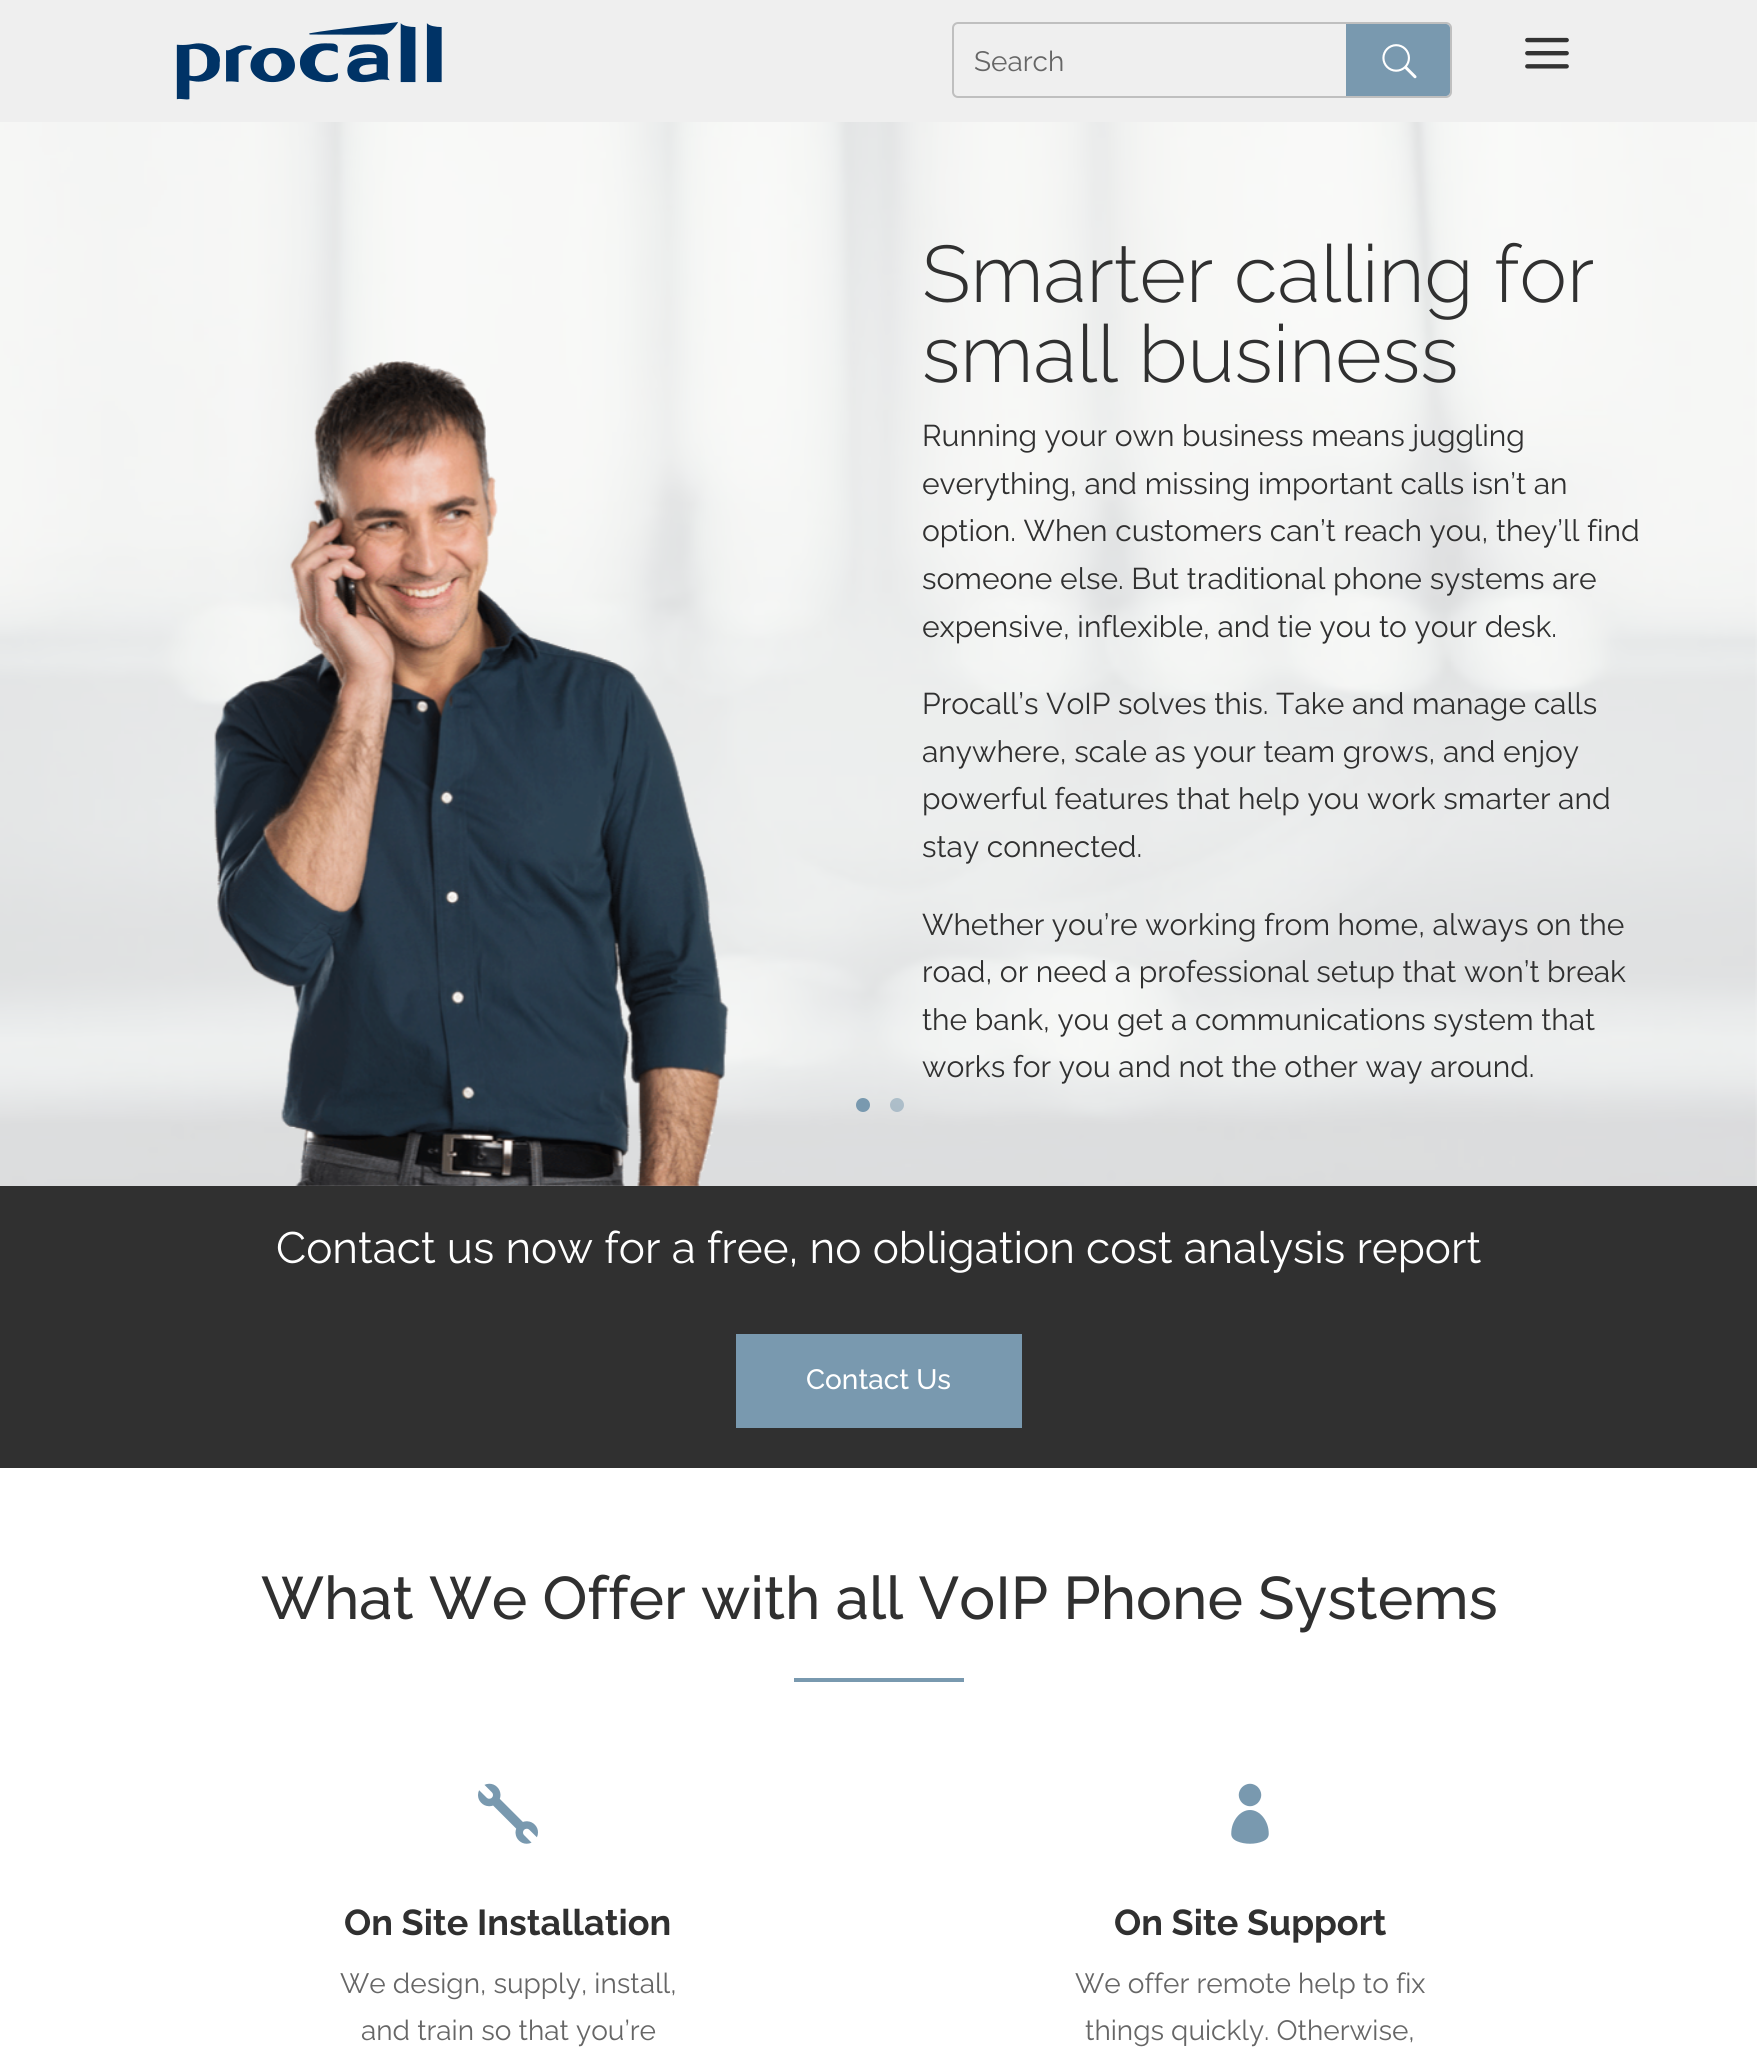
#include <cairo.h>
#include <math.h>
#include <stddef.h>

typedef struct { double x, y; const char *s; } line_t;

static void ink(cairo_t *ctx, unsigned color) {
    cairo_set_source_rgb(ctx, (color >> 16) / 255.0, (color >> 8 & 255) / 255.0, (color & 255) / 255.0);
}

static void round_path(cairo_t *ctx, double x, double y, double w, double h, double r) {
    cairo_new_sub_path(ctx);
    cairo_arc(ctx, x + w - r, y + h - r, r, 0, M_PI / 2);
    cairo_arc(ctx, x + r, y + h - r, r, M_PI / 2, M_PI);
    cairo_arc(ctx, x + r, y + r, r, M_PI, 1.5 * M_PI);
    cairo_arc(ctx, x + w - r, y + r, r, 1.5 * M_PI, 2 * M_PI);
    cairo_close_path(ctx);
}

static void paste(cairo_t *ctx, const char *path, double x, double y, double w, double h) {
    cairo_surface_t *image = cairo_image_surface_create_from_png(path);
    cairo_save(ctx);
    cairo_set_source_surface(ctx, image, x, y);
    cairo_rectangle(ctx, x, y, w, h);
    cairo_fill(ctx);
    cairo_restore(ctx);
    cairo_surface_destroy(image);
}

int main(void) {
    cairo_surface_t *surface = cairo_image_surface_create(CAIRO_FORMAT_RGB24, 1757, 2051);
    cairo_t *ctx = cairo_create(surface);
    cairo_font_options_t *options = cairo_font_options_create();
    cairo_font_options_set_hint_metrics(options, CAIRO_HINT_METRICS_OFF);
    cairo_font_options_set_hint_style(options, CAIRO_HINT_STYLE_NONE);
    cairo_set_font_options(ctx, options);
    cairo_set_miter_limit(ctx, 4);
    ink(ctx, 0xFFFFFF);
    cairo_paint(ctx);
    ink(ctx, 0xEFEFEF);
    cairo_rectangle(ctx, 0, 0, 1757, 122);
    cairo_fill(ctx);
    paste(ctx, "media/1.png", 176, 22, 266, 78);
    round_path(ctx, 953, 23, 498, 74, 5);
    ink(ctx, 0xBFBFBF);
    cairo_stroke(ctx);
    cairo_select_font_face(ctx, "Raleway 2 Thin", CAIRO_FONT_SLANT_NORMAL, CAIRO_FONT_WEIGHT_NORMAL);
    cairo_set_font_size(ctx, 28);
    ink(ctx, 0x666666);
    cairo_move_to(ctx, 974, 71);
    cairo_show_text(ctx, "Search");
    ink(ctx, 0x7999AF);
    cairo_new_path(ctx);
    cairo_move_to(ctx, 1346, 24);
    cairo_line_to(ctx, 1446, 24);
    cairo_curve_to(ctx, 1448, 24, 1450, 26, 1450, 28);
    cairo_line_to(ctx, 1450, 92);
    cairo_curve_to(ctx, 1450, 94, 1448, 96, 1446, 96);
    cairo_line_to(ctx, 1346, 96);
    cairo_close_path(ctx);
    cairo_fill(ctx);
    paste(ctx, "media/2.png", 1382, 44, 35, 35);
    paste(ctx, "media/3.png", 1525, 37, 44, 32);
    paste(ctx, "media/4.png", 0, 122, 1757, 1064);
    paste(ctx, "media/5.png", 213, 361, 516, 825);
    cairo_select_font_face(ctx, "Raleway Thin", CAIRO_FONT_SLANT_NORMAL, CAIRO_FONT_WEIGHT_NORMAL);
    cairo_set_font_size(ctx, 80);
    ink(ctx, 0x303030);
    cairo_move_to(ctx, 922, 302);
    cairo_show_text(ctx, "Smarter calling for");
    cairo_move_to(ctx, 922, 382);
    cairo_show_text(ctx, "small business");
    cairo_select_font_face(ctx, "Raleway 2 Thin", CAIRO_FONT_SLANT_NORMAL, CAIRO_FONT_WEIGHT_NORMAL);
    cairo_set_font_size(ctx, 30);
    {
        static const line_t items[] = {
            {922, 446, "Running your own business means juggling"},
            {922, 494, "everything, and missing important calls isn’t an"},
            {922, 541, "option. When customers can’t reach you, they’ll find"},
            {922, 589, "someone else. But traditional phone systems are"},
            {922, 637, "expensive, inflexible, and tie you to your desk."},
            {922, 714, "Procall’s VoIP solves this. Take and manage calls"},
            {922, 762, "anywhere, scale as your team grows, and enjoy"},
            {922, 809, "powerful features that help you work smarter and"},
            {922, 857, "stay connected."},
            {922, 935, "Whether you’re working from home, always on the"},
            {922, 982, "road, or need a professional setup that won’t break"},
            {922, 1030, "the bank, you get a communications system that"},
            {922, 1077, "works for you and not the other way around."},
        };
        for (size_t i = 0; i < sizeof items / sizeof *items; i++) {
            cairo_move_to(ctx, items[i].x, items[i].y);
            cairo_show_text(ctx, items[i].s);
        }
    }
    ink(ctx, 0x7999AF);
    cairo_new_path(ctx);
    cairo_arc(ctx, 863, 1105, 7, 0, 2 * M_PI);
    cairo_fill(ctx);
    cairo_set_source_rgba(ctx, 0.475, 0.6, 0.686, 0.5);
    cairo_arc(ctx, 897, 1105, 7, 0, 2 * M_PI);
    cairo_fill(ctx);
    ink(ctx, 0x303030);
    cairo_rectangle(ctx, 0, 1186, 1757, 282);
    cairo_fill(ctx);
    cairo_set_font_size(ctx, 44);
    ink(ctx, 0xFFFFFF);
    cairo_move_to(ctx, 276, 1263);
    cairo_show_text(ctx, "Contact us now for a free, no obligation cost analysis report");
    ink(ctx, 0x7999AF);
    cairo_rectangle(ctx, 736, 1334, 286, 94);
    cairo_fill(ctx);
    cairo_select_font_face(ctx, "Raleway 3 Thin", CAIRO_FONT_SLANT_NORMAL, CAIRO_FONT_WEIGHT_NORMAL);
    cairo_set_font_size(ctx, 28);
    ink(ctx, 0xFFFFFF);
    cairo_move_to(ctx, 806, 1389);
    cairo_show_text(ctx, "Contact Us");
    cairo_set_font_size(ctx, 60);
    ink(ctx, 0x303030);
    cairo_move_to(ctx, 261, 1619);
    cairo_show_text(ctx, "What We Offer with all VoIP Phone Systems");
    ink(ctx, 0x7999AF);
    cairo_rectangle(ctx, 794, 1678, 170, 4);
    cairo_fill(ctx);
    paste(ctx, "media/6.png", 478, 1783, 60, 61);
    cairo_select_font_face(ctx, "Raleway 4 Thin", CAIRO_FONT_SLANT_NORMAL, CAIRO_FONT_WEIGHT_NORMAL);
    cairo_set_font_size(ctx, 36);
    ink(ctx, 0x303030);
    cairo_move_to(ctx, 344, 1935);
    cairo_show_text(ctx, "On Site Installation");
    cairo_select_font_face(ctx, "Raleway 2 Thin", CAIRO_FONT_SLANT_NORMAL, CAIRO_FONT_WEIGHT_NORMAL);
    cairo_set_font_size(ctx, 28);
    ink(ctx, 0x666666);
    cairo_move_to(ctx, 340, 1993);
    cairo_show_text(ctx, "We design, supply, install,");
    cairo_move_to(ctx, 361, 2040);
    cairo_show_text(ctx, "and train so that you’re");
    paste(ctx, "media/7.png", 1231, 1783, 38, 61);
    cairo_select_font_face(ctx, "Raleway 4 Thin", CAIRO_FONT_SLANT_NORMAL, CAIRO_FONT_WEIGHT_NORMAL);
    cairo_set_font_size(ctx, 36);
    ink(ctx, 0x303030);
    cairo_move_to(ctx, 1114, 1935);
    cairo_show_text(ctx, "On Site Support");
    cairo_select_font_face(ctx, "Raleway 2 Thin", CAIRO_FONT_SLANT_NORMAL, CAIRO_FONT_WEIGHT_NORMAL);
    cairo_set_font_size(ctx, 28);
    ink(ctx, 0x666666);
    cairo_move_to(ctx, 1075, 1993);
    cairo_show_text(ctx, "We offer remote help to fix");
    cairo_move_to(ctx, 1085, 2040);
    cairo_show_text(ctx, "things quickly. Otherwise,");
    cairo_surface_write_to_png(surface, "image.png");
    cairo_font_options_destroy(options);
    cairo_destroy(ctx);
    cairo_surface_destroy(surface);
    return 0;
}
